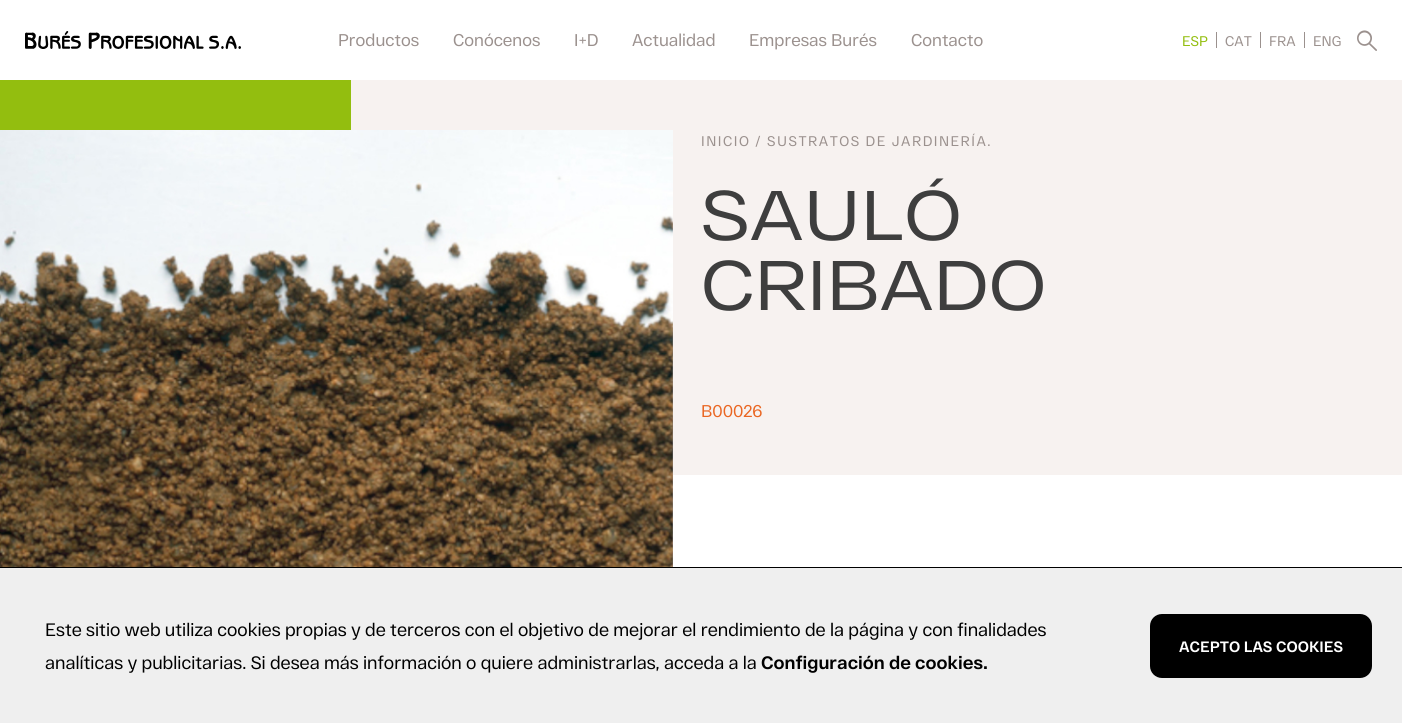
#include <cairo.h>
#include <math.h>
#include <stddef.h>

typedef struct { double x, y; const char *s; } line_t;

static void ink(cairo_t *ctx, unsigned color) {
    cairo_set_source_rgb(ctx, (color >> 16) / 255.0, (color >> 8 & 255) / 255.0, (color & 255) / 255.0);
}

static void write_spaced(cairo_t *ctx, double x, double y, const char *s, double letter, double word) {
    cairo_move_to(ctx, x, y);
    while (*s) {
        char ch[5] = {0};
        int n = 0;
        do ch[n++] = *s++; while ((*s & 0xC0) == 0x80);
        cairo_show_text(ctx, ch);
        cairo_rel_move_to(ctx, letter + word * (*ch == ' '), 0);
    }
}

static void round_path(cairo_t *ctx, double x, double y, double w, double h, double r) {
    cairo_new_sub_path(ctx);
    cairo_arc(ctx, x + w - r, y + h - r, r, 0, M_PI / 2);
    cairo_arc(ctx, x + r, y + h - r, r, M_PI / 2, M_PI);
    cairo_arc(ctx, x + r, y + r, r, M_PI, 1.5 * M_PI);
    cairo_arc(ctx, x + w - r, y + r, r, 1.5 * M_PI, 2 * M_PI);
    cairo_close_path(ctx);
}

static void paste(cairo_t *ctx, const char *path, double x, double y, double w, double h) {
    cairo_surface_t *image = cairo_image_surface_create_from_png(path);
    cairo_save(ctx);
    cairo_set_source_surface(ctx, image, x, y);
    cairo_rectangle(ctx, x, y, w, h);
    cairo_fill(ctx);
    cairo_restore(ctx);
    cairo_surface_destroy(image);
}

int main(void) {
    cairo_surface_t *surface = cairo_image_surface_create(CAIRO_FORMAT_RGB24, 1402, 723);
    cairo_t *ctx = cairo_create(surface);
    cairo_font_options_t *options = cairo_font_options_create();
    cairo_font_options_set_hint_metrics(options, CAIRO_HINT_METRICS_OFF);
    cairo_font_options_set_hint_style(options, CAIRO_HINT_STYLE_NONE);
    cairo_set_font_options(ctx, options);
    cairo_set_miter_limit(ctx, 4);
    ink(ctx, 0xFFFFFF);
    cairo_paint(ctx);
    paste(ctx, "media/1.png", 25, 31, 216, 18);
    cairo_select_font_face(ctx, "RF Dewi", CAIRO_FONT_SLANT_NORMAL, CAIRO_FONT_WEIGHT_NORMAL);
    cairo_set_font_size(ctx, 17);
    ink(ctx, 0x9B918E);
    {
        static const line_t items[] = {
            {338, 46, "Productos"},
            {453, 46, "Conócenos"},
            {574, 46, "I+D"},
            {632, 46, "Actualidad"},
            {749, 46, "Empresas Burés"},
            {911, 46, "Contacto"},
        };
        for (size_t i = 0; i < sizeof items / sizeof *items; i++) {
            cairo_move_to(ctx, items[i].x, items[i].y);
            cairo_show_text(ctx, items[i].s);
        }
    }
    cairo_rectangle(ctx, 1216, 32, 1, 16);
    cairo_fill(ctx);
    cairo_set_font_size(ctx, 14);
    ink(ctx, 0x93BE0F);
    cairo_move_to(ctx, 1182, 46);
    cairo_show_text(ctx, "ESP");
    ink(ctx, 0x9B918E);
    cairo_rectangle(ctx, 1260, 32, 1, 16);
    cairo_fill(ctx);
    cairo_move_to(ctx, 1225, 46);
    cairo_show_text(ctx, "CAT");
    cairo_rectangle(ctx, 1304, 32, 1, 16);
    cairo_fill(ctx);
    cairo_move_to(ctx, 1269, 46);
    cairo_show_text(ctx, "FRA");
    cairo_move_to(ctx, 1313, 46);
    cairo_show_text(ctx, "ENG");
    paste(ctx, "media/2.png", 1357, 30, 20, 21);
    ink(ctx, 0x93BE0F);
    cairo_rectangle(ctx, 0, 80, 351, 50);
    cairo_fill(ctx);
    ink(ctx, 0xF7F2F0);
    cairo_rectangle(ctx, 351, 80, 1051, 395);
    cairo_fill(ctx);
    paste(ctx, "media/3.png", 0, 130, 673, 437);
    ink(ctx, 0x9B918E);
    write_spaced(ctx, 701, 146, "INICIO / SUSTRATOS DE JARDINERÍA.", 1.5, 0);
    cairo_select_font_face(ctx, "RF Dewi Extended", CAIRO_FONT_SLANT_NORMAL, CAIRO_FONT_WEIGHT_NORMAL);
    cairo_set_font_size(ctx, 70);
    ink(ctx, 0x3E3E3E);
    cairo_move_to(ctx, 701, 240);
    cairo_show_text(ctx, "SAULÓ");
    cairo_move_to(ctx, 701, 310);
    cairo_show_text(ctx, "CRIBADO");
    cairo_select_font_face(ctx, "RF Dewi", CAIRO_FONT_SLANT_NORMAL, CAIRO_FONT_WEIGHT_NORMAL);
    cairo_set_font_size(ctx, 17);
    ink(ctx, 0xEA6622);
    cairo_move_to(ctx, 701, 417);
    cairo_show_text(ctx, "B00026");
    ink(ctx, 0xEFEFEF);
    cairo_rectangle(ctx, 0, 568, 1402, 155);
    cairo_fill(ctx);
    ink(ctx, 0x000000);
    cairo_rectangle(ctx, 0, 567, 1402, 1);
    cairo_fill(ctx);
    cairo_set_font_size(ctx, 18);
    cairo_move_to(ctx, 45, 636);
    cairo_show_text(ctx, "Este sitio web utiliza cookies propias y de terceros con el objetivo de mejorar el rendimiento de la página y con finalidades");
    cairo_move_to(ctx, 45, 669);
    cairo_show_text(ctx, "analíticas y publicitarias. Si desea más información o quiere administrarlas, acceda a la");
    cairo_select_font_face(ctx, "RF Dewi", CAIRO_FONT_SLANT_NORMAL, CAIRO_FONT_WEIGHT_BOLD);
    cairo_move_to(ctx, 761, 669);
    cairo_show_text(ctx, "Configuración de cookies.");
    round_path(ctx, 1150, 614, 222, 64, 12);
    cairo_fill(ctx);
    cairo_set_font_size(ctx, 15);
    ink(ctx, 0xFFFFFF);
    cairo_move_to(ctx, 1179, 652);
    cairo_show_text(ctx, "ACEPTO LAS COOKIES");
    cairo_surface_write_to_png(surface, "image.png");
    cairo_font_options_destroy(options);
    cairo_destroy(ctx);
    cairo_surface_destroy(surface);
    return 0;
}
